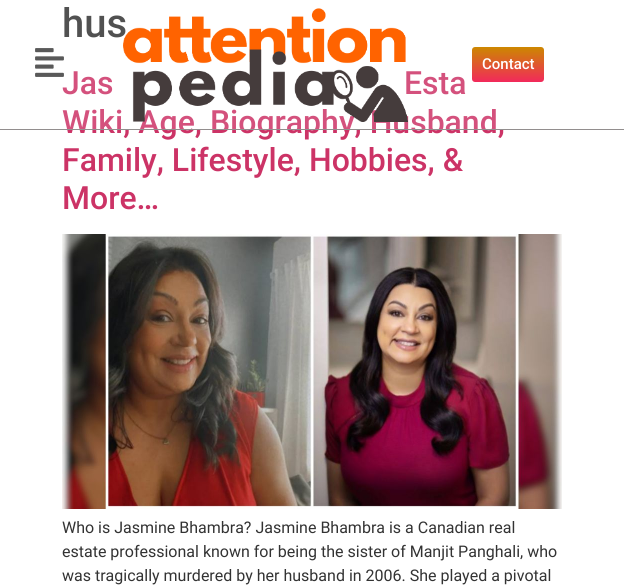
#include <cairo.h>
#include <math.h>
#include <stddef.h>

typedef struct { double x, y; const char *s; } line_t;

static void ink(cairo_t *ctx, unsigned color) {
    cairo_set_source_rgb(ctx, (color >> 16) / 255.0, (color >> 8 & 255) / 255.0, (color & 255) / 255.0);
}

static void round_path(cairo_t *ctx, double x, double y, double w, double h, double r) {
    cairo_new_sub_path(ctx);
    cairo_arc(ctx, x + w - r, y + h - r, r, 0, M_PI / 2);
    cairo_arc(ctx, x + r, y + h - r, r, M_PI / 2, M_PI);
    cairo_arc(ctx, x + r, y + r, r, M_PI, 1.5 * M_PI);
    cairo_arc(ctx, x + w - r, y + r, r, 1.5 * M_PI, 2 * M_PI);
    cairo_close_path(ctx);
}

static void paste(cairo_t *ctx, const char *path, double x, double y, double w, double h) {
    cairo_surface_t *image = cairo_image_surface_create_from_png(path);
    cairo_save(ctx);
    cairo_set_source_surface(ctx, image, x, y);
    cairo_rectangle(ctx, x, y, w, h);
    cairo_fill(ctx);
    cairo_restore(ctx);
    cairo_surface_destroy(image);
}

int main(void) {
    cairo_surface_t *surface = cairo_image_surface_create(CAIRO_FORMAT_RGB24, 624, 587);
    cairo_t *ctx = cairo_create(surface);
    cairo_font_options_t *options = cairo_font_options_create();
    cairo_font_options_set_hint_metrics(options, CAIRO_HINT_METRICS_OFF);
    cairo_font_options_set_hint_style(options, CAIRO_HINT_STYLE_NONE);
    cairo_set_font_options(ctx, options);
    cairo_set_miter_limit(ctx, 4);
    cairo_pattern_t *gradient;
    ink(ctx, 0xFFFFFF);
    cairo_paint(ctx);
    cairo_select_font_face(ctx, "Roboto Medium", CAIRO_FONT_SLANT_NORMAL, CAIRO_FONT_WEIGHT_NORMAL);
    cairo_set_font_size(ctx, 40);
    ink(ctx, 0x333333);
    cairo_move_to(ctx, 62, 37);
    cairo_show_text(ctx, "hus");
    cairo_set_font_size(ctx, 32);
    ink(ctx, 0xCC3366);
    {
        static const line_t items[] = {
            {62, 94, "Jas"},
            {404, 94, "Esta"},
            {62, 133, "Wiki, Age, Biography, Husband,"},
            {62, 171, "Family, Lifestyle, Hobbies, &"},
            {62, 209, "More…"},
        };
        for (size_t i = 0; i < sizeof items / sizeof *items; i++) {
            cairo_move_to(ctx, items[i].x, items[i].y);
            cairo_show_text(ctx, items[i].s);
        }
    }
    paste(ctx, "media/1.png", 62, 234, 500, 275);
    cairo_select_font_face(ctx, "Roboto", CAIRO_FONT_SLANT_NORMAL, CAIRO_FONT_WEIGHT_NORMAL);
    cairo_set_font_size(ctx, 16);
    ink(ctx, 0x333333);
    {
        static const line_t items[] = {
            {62, 533, "Who is Jasmine Bhambra? Jasmine Bhambra is a Canadian real"},
            {62, 557, "estate professional known for being the sister of Manjit Panghali, who"},
            {62, 581, "was tragically murdered by her husband in 2006. She played a pivotal"},
        };
        for (size_t i = 0; i < sizeof items / sizeof *items; i++) {
            cairo_move_to(ctx, items[i].x, items[i].y);
            cairo_show_text(ctx, items[i].s);
        }
    }
    cairo_set_source_rgba(ctx, 1, 1, 1, 0.15);
    cairo_rectangle(ctx, 62, 7, 434, 122);
    cairo_fill(ctx);
    ink(ctx, 0x928E8E);
    cairo_rectangle(ctx, 0, 129, 624, 1);
    cairo_fill(ctx);
    paste(ctx, "media/2.png", 35, 48, 29, 29);
    paste(ctx, "media/3.png", 123, 8, 285, 114);
    gradient = cairo_pattern_create_linear(508, 47, 508, 82);
    cairo_pattern_add_color_stop_rgba(gradient, 0, 0.8, 0.533, 0, 1);
    cairo_pattern_add_color_stop_rgba(gradient, 1, 0.949, 0.161, 0.357, 1);
    cairo_set_source(ctx, gradient);
    cairo_pattern_destroy(gradient);
    round_path(ctx, 472, 47, 72, 35, 3);
    cairo_fill(ctx);
    cairo_select_font_face(ctx, "Roboto Medium", CAIRO_FONT_SLANT_NORMAL, CAIRO_FONT_WEIGHT_NORMAL);
    cairo_set_font_size(ctx, 15);
    ink(ctx, 0xFFFFFF);
    cairo_move_to(ctx, 482, 69);
    cairo_show_text(ctx, "Contact");
    cairo_surface_write_to_png(surface, "image.png");
    cairo_font_options_destroy(options);
    cairo_destroy(ctx);
    cairo_surface_destroy(surface);
    return 0;
}
